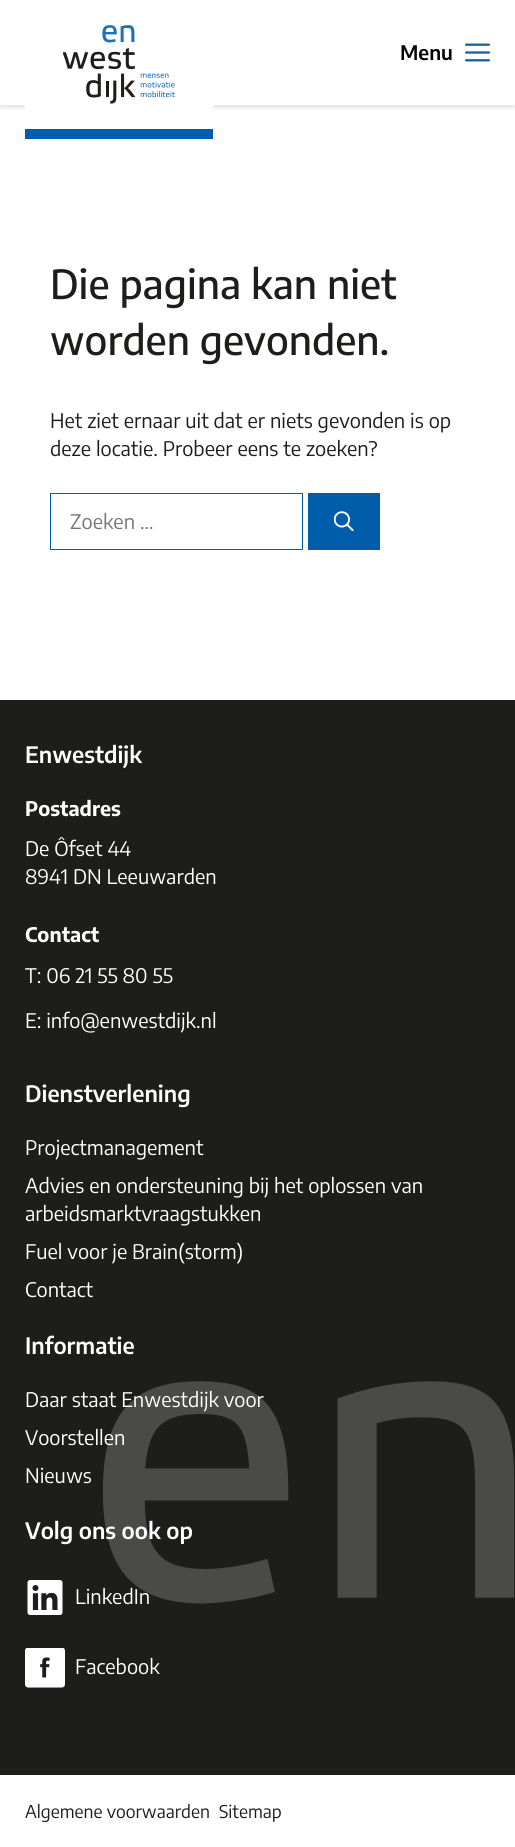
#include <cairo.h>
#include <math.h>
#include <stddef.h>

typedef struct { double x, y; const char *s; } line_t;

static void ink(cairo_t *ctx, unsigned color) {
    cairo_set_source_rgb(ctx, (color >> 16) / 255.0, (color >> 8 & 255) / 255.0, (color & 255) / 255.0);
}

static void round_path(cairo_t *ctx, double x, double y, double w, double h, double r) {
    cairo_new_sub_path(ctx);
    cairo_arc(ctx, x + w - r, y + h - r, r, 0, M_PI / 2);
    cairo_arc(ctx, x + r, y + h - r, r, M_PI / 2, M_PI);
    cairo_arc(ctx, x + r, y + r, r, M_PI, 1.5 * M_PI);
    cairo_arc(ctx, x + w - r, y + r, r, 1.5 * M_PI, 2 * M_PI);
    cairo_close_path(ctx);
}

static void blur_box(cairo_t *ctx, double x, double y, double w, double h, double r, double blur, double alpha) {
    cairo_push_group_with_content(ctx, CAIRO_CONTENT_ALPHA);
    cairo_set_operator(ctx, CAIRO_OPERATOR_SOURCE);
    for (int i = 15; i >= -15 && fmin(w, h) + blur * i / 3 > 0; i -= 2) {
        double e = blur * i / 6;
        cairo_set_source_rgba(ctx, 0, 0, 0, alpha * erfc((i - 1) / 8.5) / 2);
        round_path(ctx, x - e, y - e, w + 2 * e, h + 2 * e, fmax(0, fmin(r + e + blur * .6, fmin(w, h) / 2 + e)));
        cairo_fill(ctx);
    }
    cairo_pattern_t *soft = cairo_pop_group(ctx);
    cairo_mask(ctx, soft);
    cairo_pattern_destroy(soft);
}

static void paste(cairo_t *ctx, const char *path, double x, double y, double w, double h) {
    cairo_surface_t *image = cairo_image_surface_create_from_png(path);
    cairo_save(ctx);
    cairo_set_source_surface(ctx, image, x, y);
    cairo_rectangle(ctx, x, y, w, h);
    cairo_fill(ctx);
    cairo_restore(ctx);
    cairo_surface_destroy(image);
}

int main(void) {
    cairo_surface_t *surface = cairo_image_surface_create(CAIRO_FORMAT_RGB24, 515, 1847);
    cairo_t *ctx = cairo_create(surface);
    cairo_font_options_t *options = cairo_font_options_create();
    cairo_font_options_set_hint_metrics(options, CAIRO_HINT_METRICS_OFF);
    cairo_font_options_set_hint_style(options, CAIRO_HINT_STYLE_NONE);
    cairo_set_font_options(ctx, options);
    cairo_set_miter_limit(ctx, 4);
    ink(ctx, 0xFFFFFF);
    cairo_paint(ctx);
    cairo_save(ctx);
    cairo_rectangle(ctx, 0, 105, 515, 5);
    cairo_clip(ctx);
    ink(ctx, 0x000000);
    blur_box(ctx, 0, 3, 515, 105, 0, 2, 0.1);
    cairo_restore(ctx);
    ink(ctx, 0xFFFFFF);
    cairo_rectangle(ctx, 25, 105, 188, 6);
    cairo_fill(ctx);
    ink(ctx, 0x005DAC);
    cairo_rectangle(ctx, 25, 129, 188, 10);
    cairo_fill(ctx);
    paste(ctx, "media/1.png", 63, 25, 112, 79);
    cairo_select_font_face(ctx, "Encode Sans Condensed SemiBold", CAIRO_FONT_SLANT_NORMAL, CAIRO_FONT_WEIGHT_NORMAL);
    cairo_set_font_size(ctx, 20);
    ink(ctx, 0x000000);
    cairo_move_to(ctx, 400, 60);
    cairo_show_text(ctx, "Menu");
    paste(ctx, "media/2.png", 465, 43, 25, 19);
    cairo_select_font_face(ctx, "Encode Sans Condensed Medium", CAIRO_FONT_SLANT_NORMAL, CAIRO_FONT_WEIGHT_NORMAL);
    cairo_set_font_size(ctx, 40);
    ink(ctx, 0x1D1D1B);
    cairo_move_to(ctx, 50, 299);
    cairo_show_text(ctx, "Die pagina kan niet");
    cairo_move_to(ctx, 50, 355);
    cairo_show_text(ctx, "worden gevonden.");
    cairo_select_font_face(ctx, "Encode Sans Condensed", CAIRO_FONT_SLANT_NORMAL, CAIRO_FONT_WEIGHT_NORMAL);
    cairo_set_font_size(ctx, 20);
    cairo_move_to(ctx, 50, 428);
    cairo_show_text(ctx, "Het ziet ernaar uit dat er niets gevonden is op");
    cairo_move_to(ctx, 50, 456);
    cairo_show_text(ctx, "deze locatie. Probeer eens te zoeken?");
    cairo_rectangle(ctx, 50.5, 493.5, 252, 56);
    ink(ctx, 0x005DAC);
    cairo_set_line_width(ctx, 1);
    cairo_stroke(ctx);
    ink(ctx, 0x757575);
    cairo_move_to(ctx, 70, 529);
    cairo_show_text(ctx, "Zoeken …");
    ink(ctx, 0x005DAC);
    cairo_rectangle(ctx, 308, 493, 72, 57);
    cairo_fill(ctx);
    paste(ctx, "media/3.png", 334, 511, 20, 20);
    ink(ctx, 0x1D1D1B);
    cairo_rectangle(ctx, 0, 700, 515, 1075);
    cairo_fill(ctx);
    cairo_select_font_face(ctx, "Encode Sans Condensed SemiBold", CAIRO_FONT_SLANT_NORMAL, CAIRO_FONT_WEIGHT_NORMAL);
    cairo_set_font_size(ctx, 22.5);
    ink(ctx, 0xFFFFFF);
    cairo_move_to(ctx, 25, 763);
    cairo_show_text(ctx, "Enwestdijk");
    cairo_select_font_face(ctx, "Encode Sans Condensed", CAIRO_FONT_SLANT_NORMAL, CAIRO_FONT_WEIGHT_BOLD);
    cairo_set_font_size(ctx, 20);
    cairo_move_to(ctx, 25, 816);
    cairo_show_text(ctx, "Postadres");
    cairo_select_font_face(ctx, "Encode Sans Condensed", CAIRO_FONT_SLANT_NORMAL, CAIRO_FONT_WEIGHT_NORMAL);
    cairo_move_to(ctx, 25, 856);
    cairo_show_text(ctx, "De Ôfset 44");
    cairo_move_to(ctx, 25, 884);
    cairo_show_text(ctx, "8941 DN Leeuwarden");
    cairo_select_font_face(ctx, "Encode Sans Condensed", CAIRO_FONT_SLANT_NORMAL, CAIRO_FONT_WEIGHT_BOLD);
    cairo_move_to(ctx, 25, 942);
    cairo_show_text(ctx, "Contact");
    cairo_select_font_face(ctx, "Encode Sans Condensed", CAIRO_FONT_SLANT_NORMAL, CAIRO_FONT_WEIGHT_NORMAL);
    cairo_move_to(ctx, 25, 983);
    cairo_show_text(ctx, "T: 06 21 55 80 55");
    cairo_move_to(ctx, 25, 1028);
    cairo_show_text(ctx, "E: info@enwestdijk.nl");
    cairo_select_font_face(ctx, "Encode Sans Condensed SemiBold", CAIRO_FONT_SLANT_NORMAL, CAIRO_FONT_WEIGHT_NORMAL);
    cairo_set_font_size(ctx, 22.5);
    cairo_move_to(ctx, 25, 1102);
    cairo_show_text(ctx, "Dienstverlening");
    cairo_select_font_face(ctx, "Encode Sans Condensed", CAIRO_FONT_SLANT_NORMAL, CAIRO_FONT_WEIGHT_NORMAL);
    cairo_set_font_size(ctx, 20);
    {
        static const line_t items[] = {
            {25, 1155, "Projectmanagement"},
            {25, 1193, "Advies en ondersteuning bij het oplossen van"},
            {25, 1221, "arbeidsmarktvraagstukken"},
            {25, 1259, "Fuel voor je Brain(storm)"},
            {25, 1297, "Contact"},
        };
        for (size_t i = 0; i < sizeof items / sizeof *items; i++) {
            cairo_move_to(ctx, items[i].x, items[i].y);
            cairo_show_text(ctx, items[i].s);
        }
    }
    cairo_select_font_face(ctx, "Encode Sans Condensed SemiBold", CAIRO_FONT_SLANT_NORMAL, CAIRO_FONT_WEIGHT_NORMAL);
    cairo_set_font_size(ctx, 22.5);
    cairo_move_to(ctx, 25, 1354);
    cairo_show_text(ctx, "Informatie");
    paste(ctx, "media/6.png", 103, 1381, 412, 223);
    cairo_select_font_face(ctx, "Encode Sans Condensed", CAIRO_FONT_SLANT_NORMAL, CAIRO_FONT_WEIGHT_NORMAL);
    cairo_set_font_size(ctx, 20);
    {
        static const line_t items[] = {
            {25, 1407, "Daar staat Enwestdijk voor"},
            {25, 1445, "Voorstellen"},
            {25, 1483, "Nieuws"},
        };
        for (size_t i = 0; i < sizeof items / sizeof *items; i++) {
            cairo_move_to(ctx, items[i].x, items[i].y);
            cairo_show_text(ctx, items[i].s);
        }
    }
    cairo_select_font_face(ctx, "Encode Sans Condensed SemiBold", CAIRO_FONT_SLANT_NORMAL, CAIRO_FONT_WEIGHT_NORMAL);
    cairo_set_font_size(ctx, 22.5);
    cairo_move_to(ctx, 25, 1539);
    cairo_show_text(ctx, "Volg ons ook op");
    paste(ctx, "media/4.png", 27, 1580, 36, 35);
    cairo_select_font_face(ctx, "Encode Sans Condensed", CAIRO_FONT_SLANT_NORMAL, CAIRO_FONT_WEIGHT_NORMAL);
    cairo_set_font_size(ctx, 20);
    cairo_move_to(ctx, 75, 1604);
    cairo_show_text(ctx, "LinkedIn");
    paste(ctx, "media/5.png", 25, 1648, 40, 40);
    cairo_move_to(ctx, 75, 1674);
    cairo_show_text(ctx, "Facebook");
    cairo_set_font_size(ctx, 17.5);
    ink(ctx, 0x1D1D1B);
    cairo_move_to(ctx, 25, 1818);
    cairo_show_text(ctx, "Algemene voorwaarden");
    cairo_move_to(ctx, 219, 1818);
    cairo_show_text(ctx, "Sitemap");
    cairo_surface_write_to_png(surface, "image.png");
    cairo_font_options_destroy(options);
    cairo_destroy(ctx);
    cairo_surface_destroy(surface);
    return 0;
}
